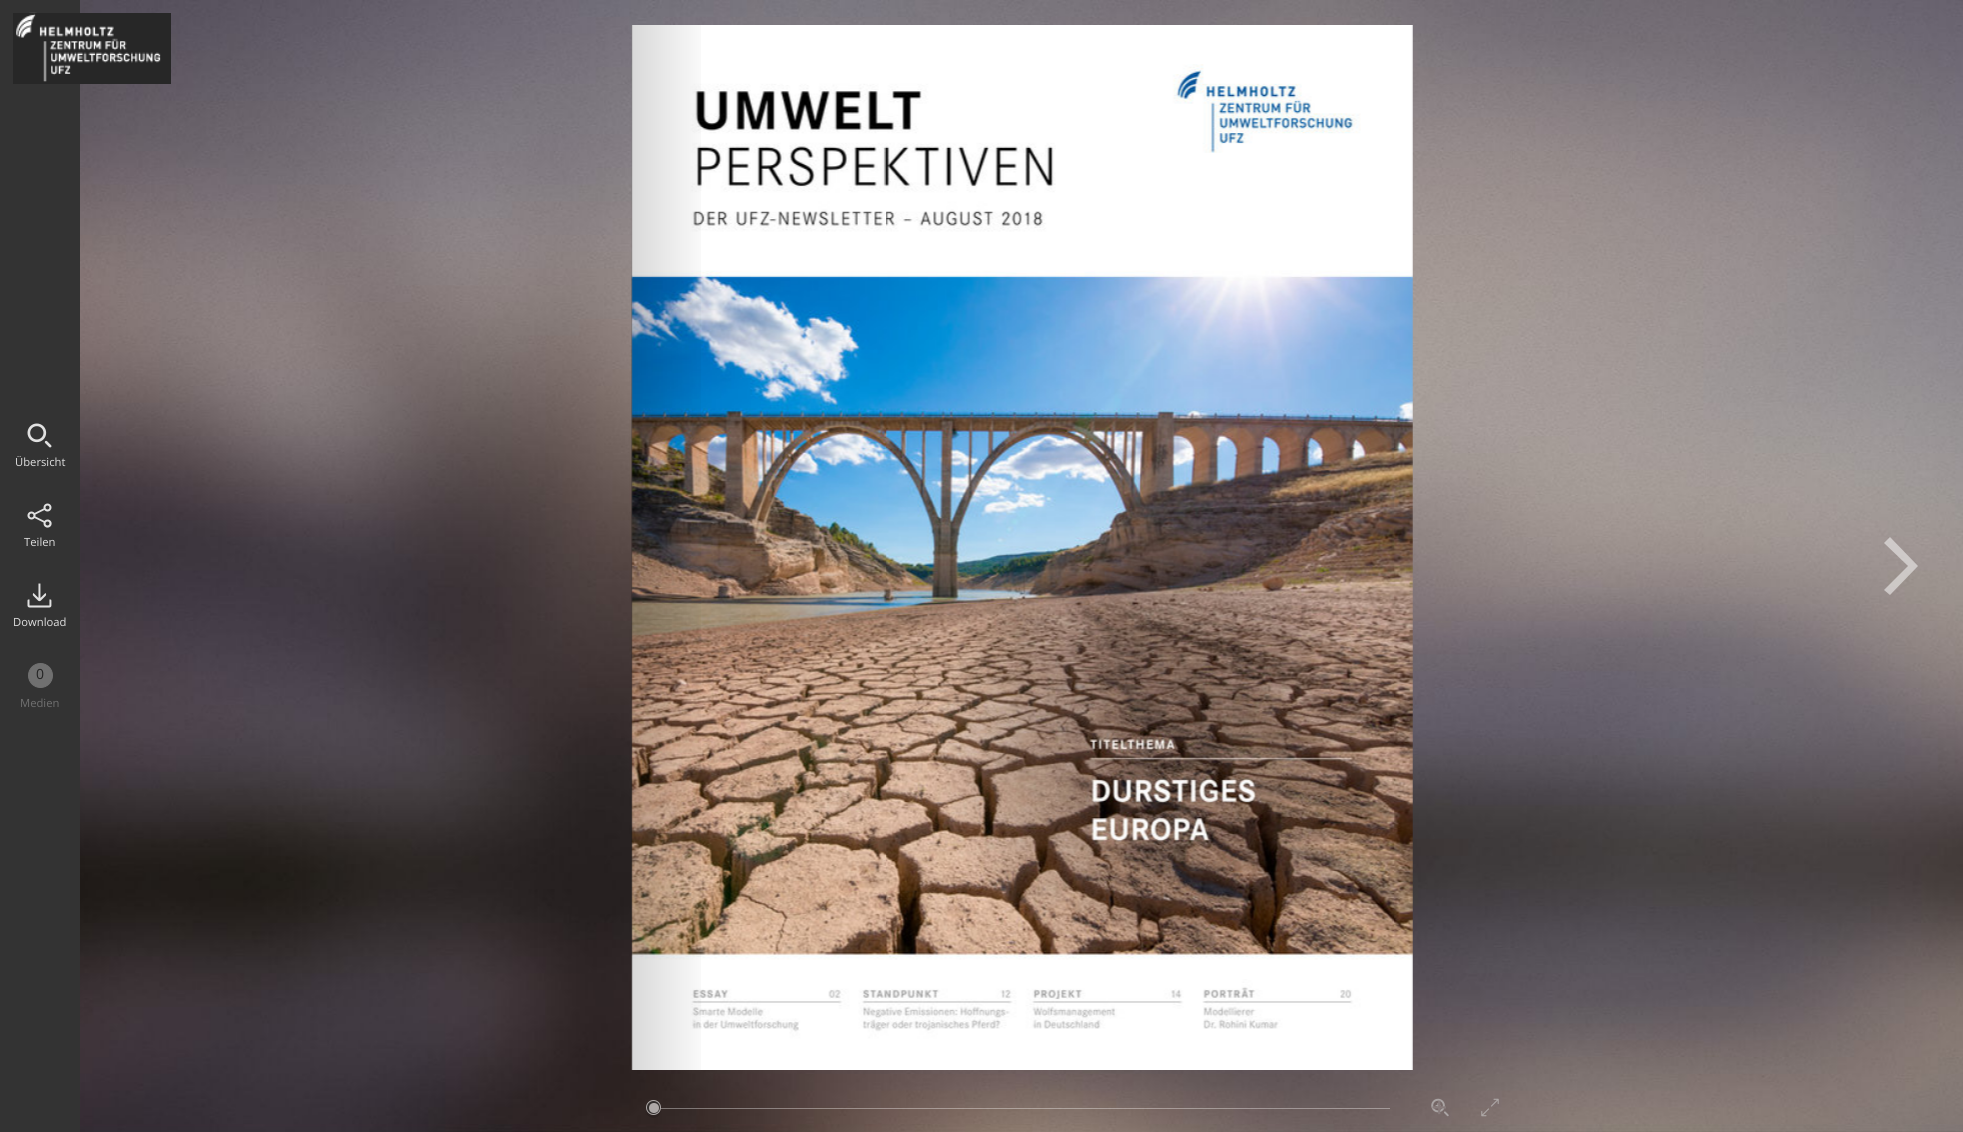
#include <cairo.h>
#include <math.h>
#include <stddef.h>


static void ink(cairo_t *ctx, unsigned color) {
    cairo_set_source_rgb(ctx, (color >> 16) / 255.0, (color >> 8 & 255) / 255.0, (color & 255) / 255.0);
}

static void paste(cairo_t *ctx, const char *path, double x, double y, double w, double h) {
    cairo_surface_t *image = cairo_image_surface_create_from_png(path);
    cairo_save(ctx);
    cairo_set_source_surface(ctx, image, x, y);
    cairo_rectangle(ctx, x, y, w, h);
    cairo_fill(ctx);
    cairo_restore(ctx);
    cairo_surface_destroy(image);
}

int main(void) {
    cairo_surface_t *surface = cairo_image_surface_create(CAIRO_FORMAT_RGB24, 1963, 1132);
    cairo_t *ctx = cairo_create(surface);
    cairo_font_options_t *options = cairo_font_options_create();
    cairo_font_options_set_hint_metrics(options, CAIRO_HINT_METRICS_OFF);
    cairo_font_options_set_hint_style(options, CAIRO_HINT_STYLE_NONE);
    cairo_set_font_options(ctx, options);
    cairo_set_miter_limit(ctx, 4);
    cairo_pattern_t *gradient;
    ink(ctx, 0xFFFFFF);
    cairo_paint(ctx);
    paste(ctx, "media/1.png", 80, 0, 1883, 1132);
    ink(ctx, 0x333333);
    cairo_rectangle(ctx, 0, 0, 80, 1132);
    cairo_fill(ctx);
    paste(ctx, "media/2.png", 29, 12, 8, 1);
    ink(ctx, 0x272727);
    cairo_rectangle(ctx, 13, 13, 158, 71);
    cairo_fill(ctx);
    paste(ctx, "media/3.png", 16, 13, 145, 69);
    paste(ctx, "media/4.png", 27, 423, 25, 25);
    cairo_select_font_face(ctx, "Open Sans", CAIRO_FONT_SLANT_NORMAL, CAIRO_FONT_WEIGHT_NORMAL);
    cairo_set_font_size(ctx, 11.25);
    ink(ctx, 0xE0E0E0);
    cairo_move_to(ctx, 15, 466);
    cairo_show_text(ctx, "Übersicht");
    paste(ctx, "media/5.png", 27, 503, 25, 25);
    cairo_move_to(ctx, 24, 546);
    cairo_show_text(ctx, "Teilen");
    paste(ctx, "media/6.png", 27, 583, 25, 25);
    cairo_move_to(ctx, 13, 626);
    cairo_show_text(ctx, "Download");
    ink(ctx, 0x707070);
    cairo_new_path(ctx);
    cairo_arc(ctx, 40.5, 675.5, 12, 0, 2 * M_PI);
    cairo_fill_preserve(ctx);
    cairo_set_line_width(ctx, 1);
    cairo_stroke(ctx);
    cairo_set_font_size(ctx, 14);
    ink(ctx, 0x242424);
    cairo_move_to(ctx, 36, 679);
    cairo_show_text(ctx, "0");
    cairo_set_font_size(ctx, 11.25);
    ink(ctx, 0x707070);
    cairo_move_to(ctx, 20, 707);
    cairo_show_text(ctx, "Medien");
    paste(ctx, "media/9.png", 632, 25, 780, 1045);
    paste(ctx, "media/7.png", 631, 25, 782, 1045);
    paste(ctx, "media/8.png", 631, 25, 782, 1045);
    gradient = cairo_pattern_create_linear(632, 548, 713, 548);
    cairo_pattern_add_color_stop_rgba(gradient, 0, 0, 0, 0, 0.15);
    cairo_pattern_add_color_stop_rgba(gradient, 1, 0, 0, 0, 0);
    cairo_set_source(ctx, gradient);
    cairo_pattern_destroy(gradient);
    cairo_rectangle(ctx, 631, 25, 70, 1045);
    cairo_fill(ctx);
    cairo_set_source_rgba(ctx, 1, 1, 1, 0.5);
    cairo_new_path(ctx);
    cairo_move_to(ctx, 1890, 537);
    cairo_line_to(ctx, 1918, 566);
    cairo_line_to(ctx, 1890, 595);
    cairo_line_to(ctx, 1884, 590);
    cairo_line_to(ctx, 1908, 566);
    cairo_line_to(ctx, 1884, 543);
    cairo_close_path(ctx);
    cairo_fill(ctx);
    cairo_set_source_rgba(ctx, 1, 1, 1, 0.36);
    cairo_rectangle(ctx, 654, 1108, 736, 1);
    cairo_fill(ctx);
    ink(ctx, 0x2B2120);
    cairo_new_path(ctx);
    cairo_move_to(ctx, 646.5, 1108.5);
    cairo_curve_to(ctx, 644, 1116.5, 655, 1122, 659.5, 1114.5);
    cairo_curve_to(ctx, 660.5, 1113, 661, 1111.5, 661, 1109.5);
    cairo_curve_to(ctx, 658.5, 1117.5, 647, 1116.5, 646.5, 1108.5);
    cairo_close_path(ctx);
    cairo_fill(ctx);
    ink(ctx, 0x322E2D);
    cairo_arc(ctx, 653.5, 1107.5, 7, 0, 2 * M_PI);
    cairo_fill_preserve(ctx);
    ink(ctx, 0xADA8A7);
    cairo_stroke(ctx);
    cairo_arc(ctx, 654, 1108, 5, 0, 2 * M_PI);
    cairo_fill(ctx);
    paste(ctx, "media/10.png", 1431, 1098, 18, 19);
    cairo_select_font_face(ctx, "Droid Sans", CAIRO_FONT_SLANT_NORMAL, CAIRO_FONT_WEIGHT_NORMAL);
    cairo_set_font_size(ctx, 30);
    ink(ctx, 0x887C7C);
    cairo_move_to(ctx, 1431, 1118);
    cairo_show_text(ctx, "+");
    paste(ctx, "media/11.png", 1481, 1098, 18, 19);
    cairo_surface_write_to_png(surface, "image.png");
    cairo_font_options_destroy(options);
    cairo_destroy(ctx);
    cairo_surface_destroy(surface);
    return 0;
}
